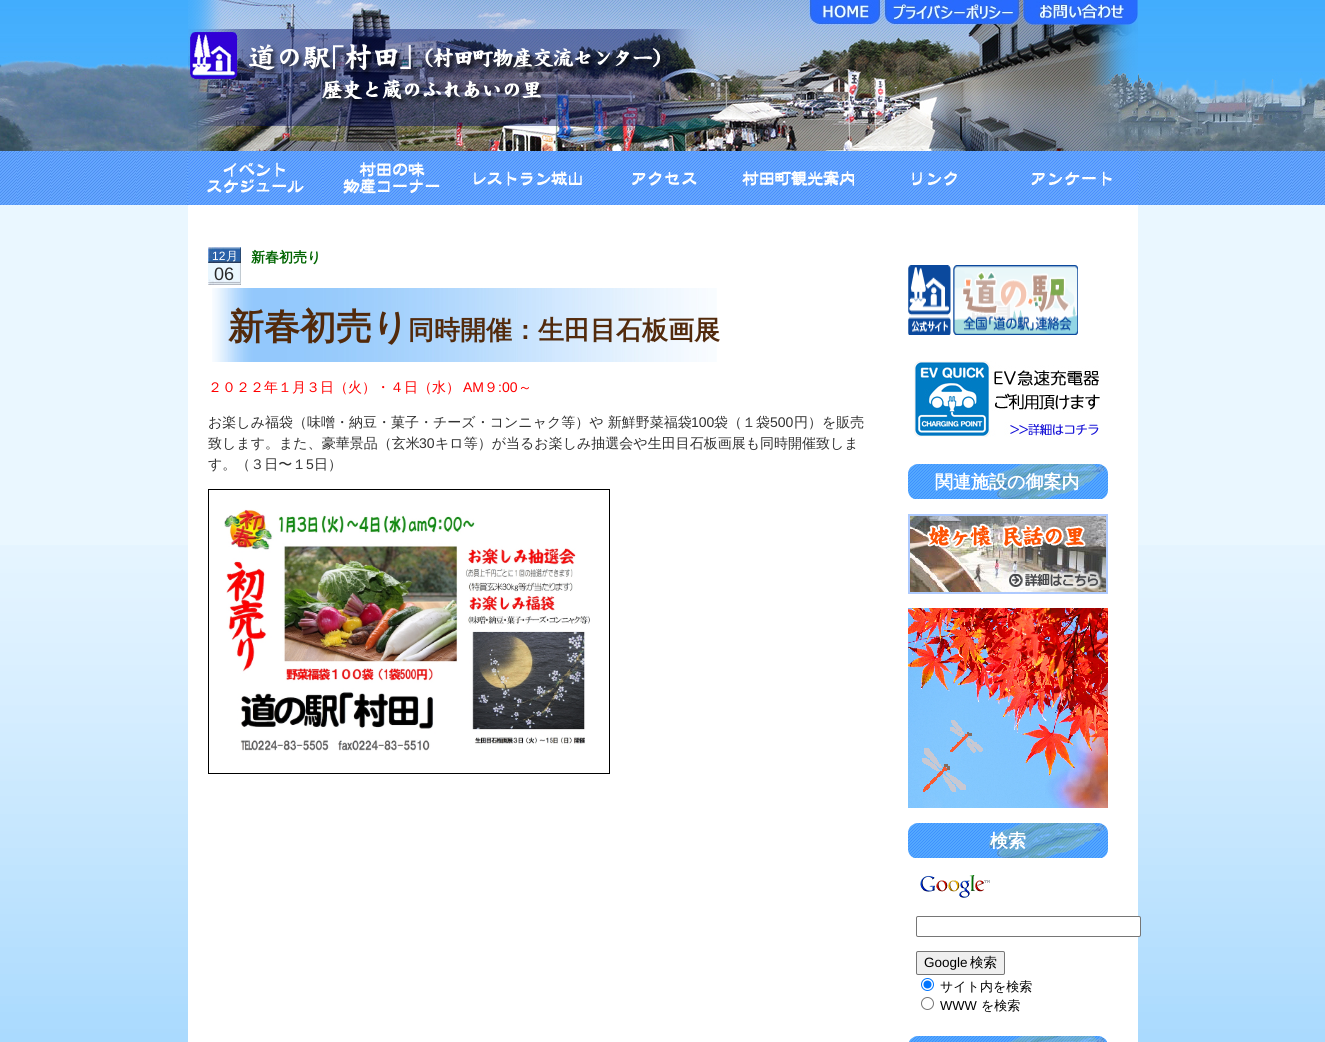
#include <cairo.h>
#include <math.h>
#include <stddef.h>


static void ink(cairo_t *ctx, unsigned color) {
    cairo_set_source_rgb(ctx, (color >> 16) / 255.0, (color >> 8 & 255) / 255.0, (color & 255) / 255.0);
}

static void round_path(cairo_t *ctx, double x, double y, double w, double h, double r) {
    cairo_new_sub_path(ctx);
    cairo_arc(ctx, x + w - r, y + h - r, r, 0, M_PI / 2);
    cairo_arc(ctx, x + r, y + h - r, r, M_PI / 2, M_PI);
    cairo_arc(ctx, x + r, y + r, r, M_PI, 1.5 * M_PI);
    cairo_arc(ctx, x + w - r, y + r, r, 1.5 * M_PI, 2 * M_PI);
    cairo_close_path(ctx);
}

static void paste(cairo_t *ctx, const char *path, double x, double y, double w, double h) {
    cairo_surface_t *image = cairo_image_surface_create_from_png(path);
    cairo_save(ctx);
    cairo_set_source_surface(ctx, image, x, y);
    cairo_rectangle(ctx, x, y, w, h);
    cairo_fill(ctx);
    cairo_restore(ctx);
    cairo_surface_destroy(image);
}

int main(void) {
    cairo_surface_t *surface = cairo_image_surface_create(CAIRO_FORMAT_RGB24, 1325, 1042);
    cairo_t *ctx = cairo_create(surface);
    cairo_font_options_t *options = cairo_font_options_create();
    cairo_font_options_set_hint_metrics(options, CAIRO_HINT_METRICS_OFF);
    cairo_font_options_set_hint_style(options, CAIRO_HINT_STYLE_NONE);
    cairo_set_font_options(ctx, options);
    cairo_set_miter_limit(ctx, 4);
    ink(ctx, 0xEAF7FF);
    cairo_paint(ctx);
    paste(ctx, "media/1.png", 0, 545, 1325, 497);
    paste(ctx, "media/2.png", 0, 0, 1325, 151);
    paste(ctx, "media/3.png", 188, 0, 950, 151);
    paste(ctx, "media/4.png", 809, 0, 75, 25);
    paste(ctx, "media/5.png", 884, 0, 139, 25);
    paste(ctx, "media/6.png", 1023, 0, 115, 25);
    paste(ctx, "media/7.png", 0, 151, 1325, 54);
    paste(ctx, "media/8.png", 188, 151, 135, 54);
    paste(ctx, "media/9.png", 323, 151, 136, 54);
    paste(ctx, "media/10.png", 459, 151, 136, 54);
    paste(ctx, "media/11.png", 595, 151, 136, 54);
    paste(ctx, "media/12.png", 731, 151, 136, 54);
    paste(ctx, "media/13.png", 867, 151, 136, 54);
    paste(ctx, "media/14.png", 1003, 151, 135, 54);
    ink(ctx, 0xFFFFFF);
    cairo_rectangle(ctx, 188, 205, 950, 837);
    cairo_fill(ctx);
    paste(ctx, "media/15.png", 208, 247, 33, 38);
    cairo_select_font_face(ctx, "Liberation Sans", CAIRO_FONT_SLANT_NORMAL, CAIRO_FONT_WEIGHT_NORMAL);
    cairo_set_font_size(ctx, 12);
    cairo_move_to(ctx, 212, 260);
    cairo_show_text(ctx, "12");
    cairo_select_font_face(ctx, "WenQuanYi Zen Hei Medium", CAIRO_FONT_SLANT_NORMAL, CAIRO_FONT_WEIGHT_NORMAL);
    cairo_move_to(ctx, 226, 260);
    cairo_show_text(ctx, "月");
    cairo_select_font_face(ctx, "Liberation Sans", CAIRO_FONT_SLANT_NORMAL, CAIRO_FONT_WEIGHT_NORMAL);
    cairo_set_font_size(ctx, 18);
    ink(ctx, 0x2A2A2A);
    cairo_move_to(ctx, 214, 280);
    cairo_show_text(ctx, "06");
    cairo_select_font_face(ctx, "WenQuanYi Zen Hei", CAIRO_FONT_SLANT_NORMAL, CAIRO_FONT_WEIGHT_BOLD);
    cairo_set_font_size(ctx, 14);
    ink(ctx, 0x006400);
    cairo_move_to(ctx, 251, 262);
    cairo_show_text(ctx, "新春初売り");
    paste(ctx, "media/16.png", 212, 288, 505, 74);
    cairo_set_font_size(ctx, 36);
    ink(ctx, 0x522A0C);
    cairo_move_to(ctx, 228, 339);
    cairo_show_text(ctx, "新春初売り");
    cairo_set_font_size(ctx, 26);
    cairo_move_to(ctx, 408, 339);
    cairo_show_text(ctx, "同時開催：生田目石板画展");
    cairo_select_font_face(ctx, "WenQuanYi Zen Hei Medium", CAIRO_FONT_SLANT_NORMAL, CAIRO_FONT_WEIGHT_NORMAL);
    cairo_set_font_size(ctx, 14);
    ink(ctx, 0xFF0000);
    cairo_move_to(ctx, 208, 392);
    cairo_show_text(ctx, "２０２２年１月３日（火）・４日（水）");
    cairo_select_font_face(ctx, "Liberation Sans", CAIRO_FONT_SLANT_NORMAL, CAIRO_FONT_WEIGHT_NORMAL);
    cairo_move_to(ctx, 463, 392);
    cairo_show_text(ctx, "AM");
    cairo_select_font_face(ctx, "WenQuanYi Zen Hei Medium", CAIRO_FONT_SLANT_NORMAL, CAIRO_FONT_WEIGHT_NORMAL);
    cairo_move_to(ctx, 484, 392);
    cairo_show_text(ctx, "９");
    cairo_select_font_face(ctx, "Liberation Sans", CAIRO_FONT_SLANT_NORMAL, CAIRO_FONT_WEIGHT_NORMAL);
    cairo_move_to(ctx, 498, 392);
    cairo_show_text(ctx, ":00");
    cairo_select_font_face(ctx, "WenQuanYi Zen Hei Medium", CAIRO_FONT_SLANT_NORMAL, CAIRO_FONT_WEIGHT_NORMAL);
    cairo_move_to(ctx, 518, 392);
    cairo_show_text(ctx, "～");
    ink(ctx, 0x313131);
    cairo_move_to(ctx, 208, 427);
    cairo_show_text(ctx, "お楽しみ福袋（味噌・納豆・菓子・チーズ・コンニャク等）や 新鮮野菜福袋");
    cairo_select_font_face(ctx, "Liberation Sans", CAIRO_FONT_SLANT_NORMAL, CAIRO_FONT_WEIGHT_NORMAL);
    cairo_move_to(ctx, 691, 427);
    cairo_show_text(ctx, "100");
    cairo_select_font_face(ctx, "WenQuanYi Zen Hei Medium", CAIRO_FONT_SLANT_NORMAL, CAIRO_FONT_WEIGHT_NORMAL);
    cairo_move_to(ctx, 714, 427);
    cairo_show_text(ctx, "袋（１袋");
    cairo_select_font_face(ctx, "Liberation Sans", CAIRO_FONT_SLANT_NORMAL, CAIRO_FONT_WEIGHT_NORMAL);
    cairo_move_to(ctx, 770, 427);
    cairo_show_text(ctx, "500");
    cairo_select_font_face(ctx, "WenQuanYi Zen Hei Medium", CAIRO_FONT_SLANT_NORMAL, CAIRO_FONT_WEIGHT_NORMAL);
    cairo_move_to(ctx, 794, 427);
    cairo_show_text(ctx, "円）を販売");
    cairo_move_to(ctx, 208, 448);
    cairo_show_text(ctx, "致します。また、豪華景品（玄米");
    cairo_select_font_face(ctx, "Liberation Sans", CAIRO_FONT_SLANT_NORMAL, CAIRO_FONT_WEIGHT_NORMAL);
    cairo_move_to(ctx, 419, 448);
    cairo_show_text(ctx, "30");
    cairo_select_font_face(ctx, "WenQuanYi Zen Hei Medium", CAIRO_FONT_SLANT_NORMAL, CAIRO_FONT_WEIGHT_NORMAL);
    cairo_move_to(ctx, 435, 448);
    cairo_show_text(ctx, "キロ等）が当るお楽しみ抽選会や生田目石板画展も同時開催致しま");
    cairo_move_to(ctx, 208, 469);
    cairo_show_text(ctx, "す。（３日〜１");
    cairo_select_font_face(ctx, "Liberation Sans", CAIRO_FONT_SLANT_NORMAL, CAIRO_FONT_WEIGHT_NORMAL);
    cairo_move_to(ctx, 306, 469);
    cairo_show_text(ctx, "5");
    cairo_select_font_face(ctx, "WenQuanYi Zen Hei Medium", CAIRO_FONT_SLANT_NORMAL, CAIRO_FONT_WEIGHT_NORMAL);
    cairo_move_to(ctx, 314, 469);
    cairo_show_text(ctx, "日）");
    cairo_rectangle(ctx, 208.5, 489.5, 401, 284);
    ink(ctx, 0x000000);
    cairo_set_line_width(ctx, 1);
    cairo_stroke(ctx);
    paste(ctx, "media/17.png", 224, 509, 366, 242);
    paste(ctx, "media/18.png", 908, 265, 170, 70);
    paste(ctx, "media/19.png", 914, 361, 186, 76);
    paste(ctx, "media/20.png", 908, 464, 200, 35);
    cairo_select_font_face(ctx, "WenQuanYi Zen Hei", CAIRO_FONT_SLANT_NORMAL, CAIRO_FONT_WEIGHT_BOLD);
    cairo_set_font_size(ctx, 18);
    ink(ctx, 0xFFFFFF);
    cairo_move_to(ctx, 935, 488);
    cairo_show_text(ctx, "関連施設の御案内");
    paste(ctx, "media/21.png", 908, 514, 200, 80);
    paste(ctx, "media/22.png", 908, 608, 200, 200);
    paste(ctx, "media/20.png", 908, 823, 200, 35);
    cairo_move_to(ctx, 990, 847);
    cairo_show_text(ctx, "検索");
    paste(ctx, "media/23.png", 920, 875, 70, 23);
    round_path(ctx, 916.5, 916.5, 224, 20, 1.5);
    cairo_fill_preserve(ctx);
    ink(ctx, 0x767676);
    cairo_stroke(ctx);
    ink(ctx, 0xEFEFEF);
    round_path(ctx, 916.5, 951.5, 88, 23, 1.5);
    cairo_fill_preserve(ctx);
    ink(ctx, 0x767676);
    cairo_stroke(ctx);
    cairo_select_font_face(ctx, "Liberation Sans", CAIRO_FONT_SLANT_NORMAL, CAIRO_FONT_WEIGHT_NORMAL);
    cairo_set_font_size(ctx, 13.5);
    ink(ctx, 0x000000);
    cairo_move_to(ctx, 924, 967);
    cairo_show_text(ctx, "Google");
    cairo_select_font_face(ctx, "WenQuanYi Zen Hei Medium", CAIRO_FONT_SLANT_NORMAL, CAIRO_FONT_WEIGHT_NORMAL);
    cairo_move_to(ctx, 970, 967);
    cairo_show_text(ctx, "検索");
    cairo_new_path(ctx);
    cairo_arc(ctx, 927.5, 984.5, 6, 0, 2 * M_PI);
    ink(ctx, 0x0075FF);
    cairo_stroke(ctx);
    cairo_arc(ctx, 927.5, 984.5, 4, 0, 2 * M_PI);
    cairo_fill(ctx);
    cairo_set_font_size(ctx, 13);
    ink(ctx, 0x000000);
    cairo_move_to(ctx, 940, 991);
    cairo_show_text(ctx, "サイト内を検索");
    cairo_new_path(ctx);
    cairo_arc(ctx, 927.5, 1003.5, 6, 0, 2 * M_PI);
    ink(ctx, 0x767676);
    cairo_stroke(ctx);
    cairo_select_font_face(ctx, "Liberation Sans", CAIRO_FONT_SLANT_NORMAL, CAIRO_FONT_WEIGHT_NORMAL);
    ink(ctx, 0x000000);
    cairo_move_to(ctx, 940, 1010);
    cairo_show_text(ctx, "WWW");
    cairo_select_font_face(ctx, "WenQuanYi Zen Hei Medium", CAIRO_FONT_SLANT_NORMAL, CAIRO_FONT_WEIGHT_NORMAL);
    cairo_move_to(ctx, 981, 1010);
    cairo_show_text(ctx, "を検索");
    paste(ctx, "media/24.png", 909, 1036, 198, 6);
    cairo_surface_write_to_png(surface, "image.png");
    cairo_font_options_destroy(options);
    cairo_destroy(ctx);
    cairo_surface_destroy(surface);
    return 0;
}
